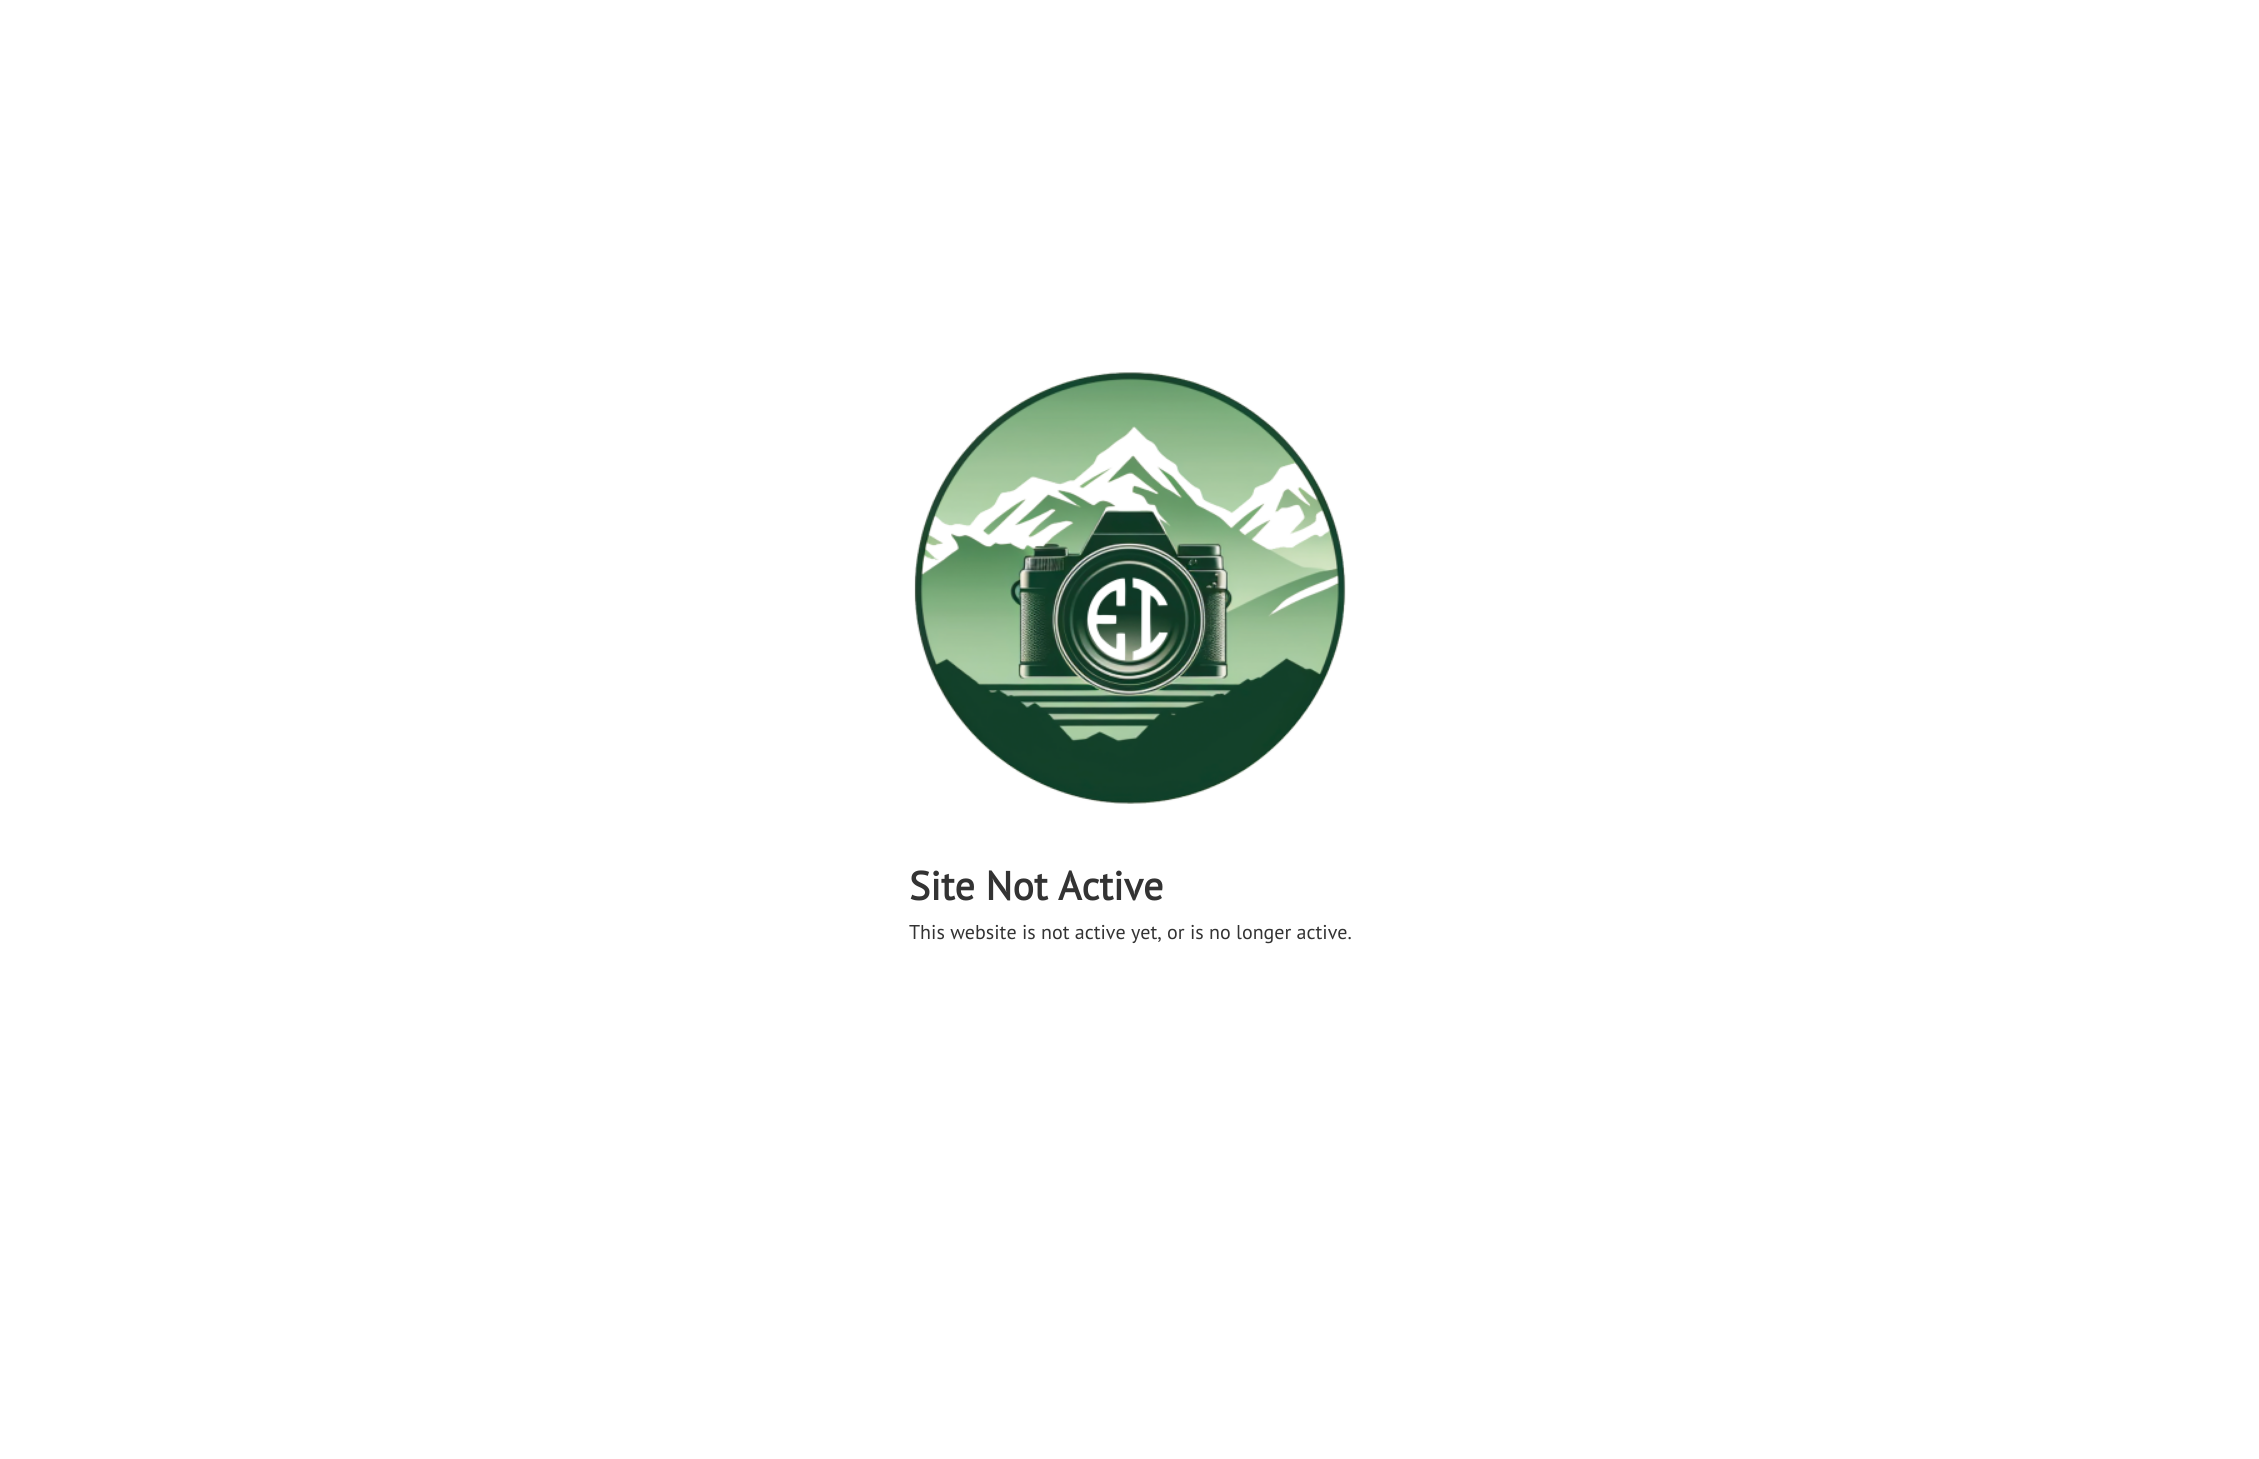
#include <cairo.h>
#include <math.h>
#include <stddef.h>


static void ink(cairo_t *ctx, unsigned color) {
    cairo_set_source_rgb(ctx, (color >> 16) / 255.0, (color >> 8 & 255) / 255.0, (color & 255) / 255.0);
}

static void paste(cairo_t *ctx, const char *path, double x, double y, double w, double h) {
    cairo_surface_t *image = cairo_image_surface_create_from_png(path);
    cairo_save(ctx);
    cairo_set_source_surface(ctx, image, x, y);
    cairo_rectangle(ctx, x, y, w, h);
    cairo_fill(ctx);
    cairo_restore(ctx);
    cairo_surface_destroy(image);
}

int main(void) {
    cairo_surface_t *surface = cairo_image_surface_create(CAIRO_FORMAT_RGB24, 2259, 1459);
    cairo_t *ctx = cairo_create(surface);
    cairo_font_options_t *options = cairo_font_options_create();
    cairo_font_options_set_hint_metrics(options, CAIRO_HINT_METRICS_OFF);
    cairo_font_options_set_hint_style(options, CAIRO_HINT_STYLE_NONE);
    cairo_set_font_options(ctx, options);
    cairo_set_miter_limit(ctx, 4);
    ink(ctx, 0xFFFFFF);
    cairo_paint(ctx);
    paste(ctx, "media/1.png", 914, 372, 432, 432);
    cairo_select_font_face(ctx, "PT Sans", CAIRO_FONT_SLANT_NORMAL, CAIRO_FONT_WEIGHT_BOLD);
    cairo_set_font_size(ctx, 40);
    ink(ctx, 0x333333);
    cairo_move_to(ctx, 909, 900);
    cairo_show_text(ctx, "Site Not Active");
    cairo_select_font_face(ctx, "PT Sans", CAIRO_FONT_SLANT_NORMAL, CAIRO_FONT_WEIGHT_NORMAL);
    cairo_set_font_size(ctx, 20);
    cairo_move_to(ctx, 909, 939);
    cairo_show_text(ctx, "This website is not active yet, or is no longer active.");
    cairo_surface_write_to_png(surface, "image.png");
    cairo_font_options_destroy(options);
    cairo_destroy(ctx);
    cairo_surface_destroy(surface);
    return 0;
}
